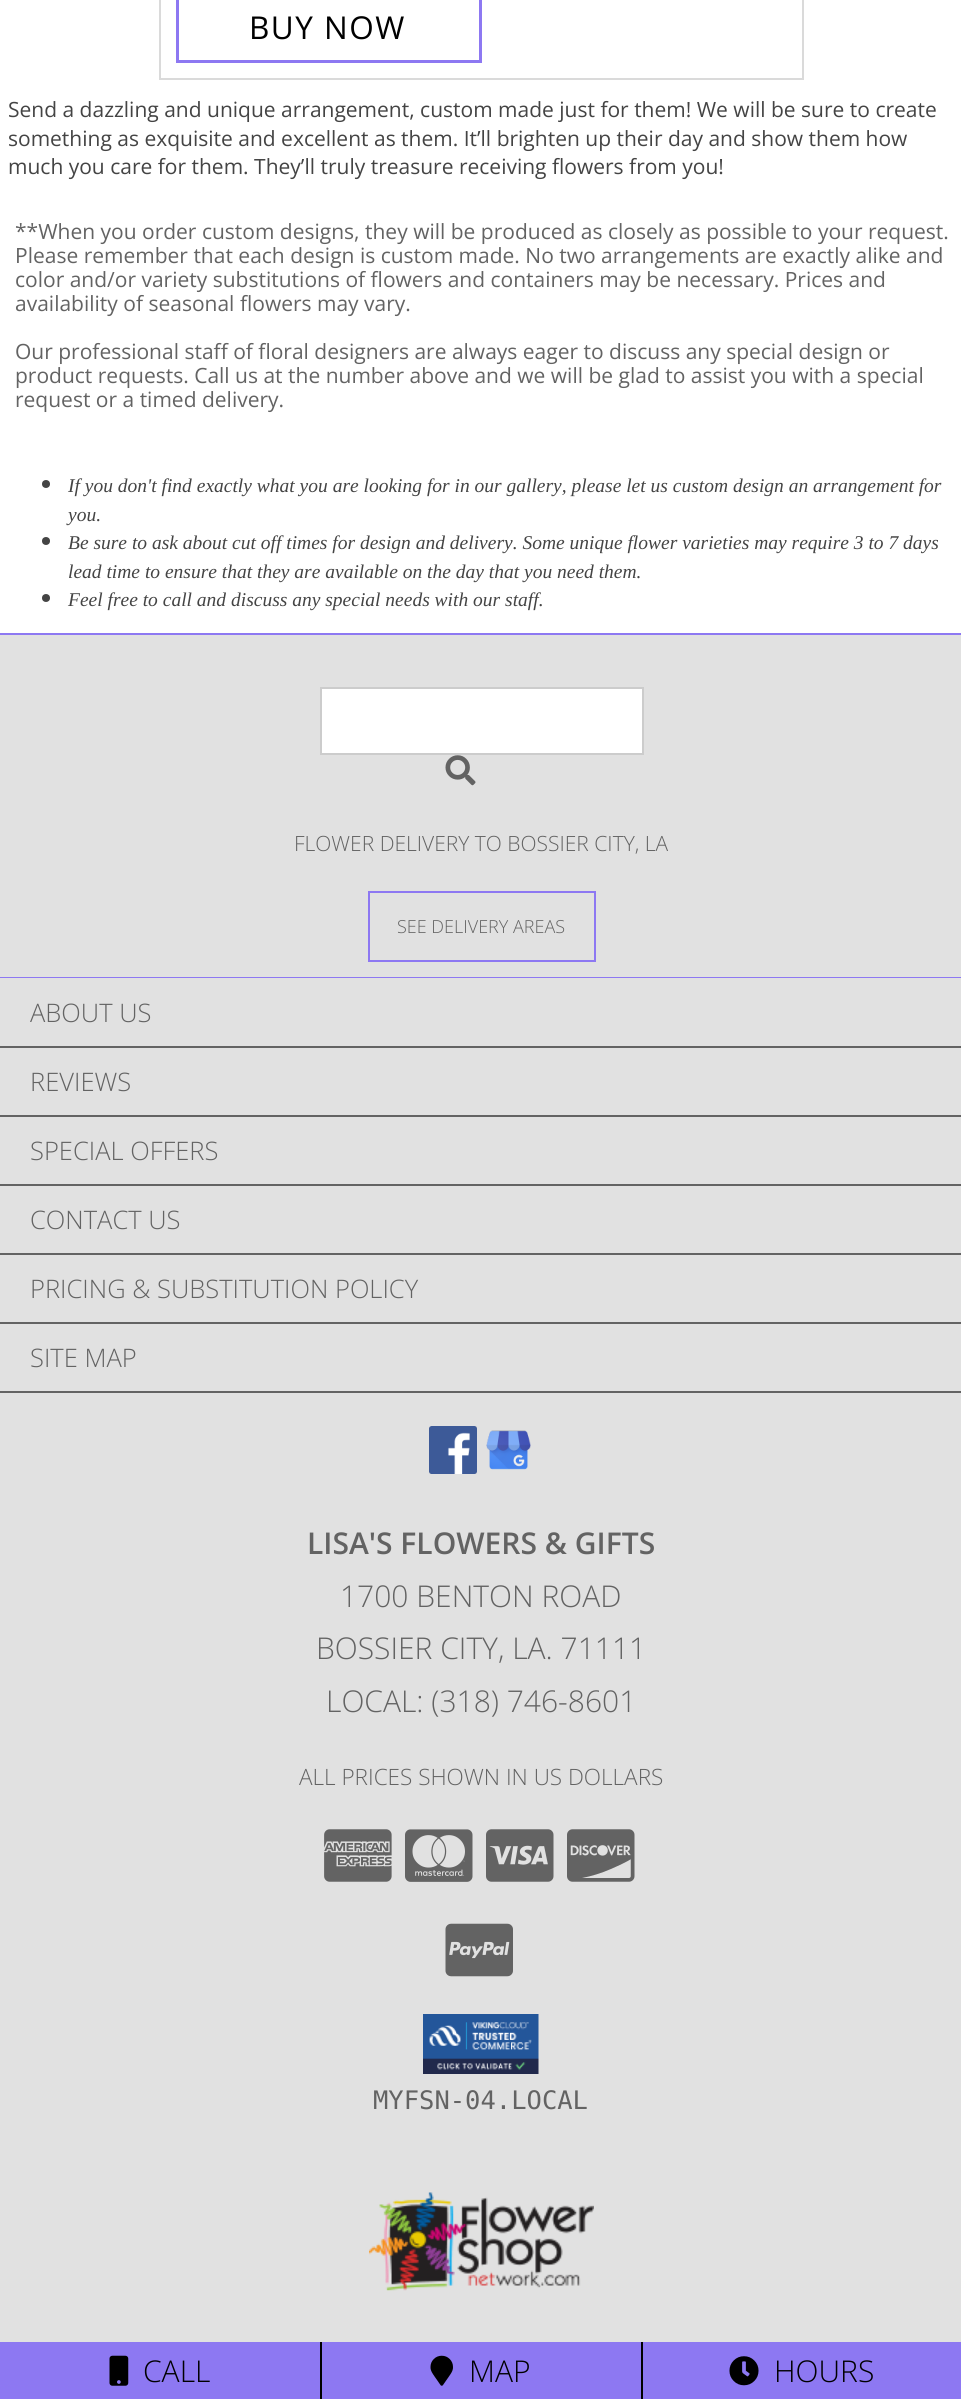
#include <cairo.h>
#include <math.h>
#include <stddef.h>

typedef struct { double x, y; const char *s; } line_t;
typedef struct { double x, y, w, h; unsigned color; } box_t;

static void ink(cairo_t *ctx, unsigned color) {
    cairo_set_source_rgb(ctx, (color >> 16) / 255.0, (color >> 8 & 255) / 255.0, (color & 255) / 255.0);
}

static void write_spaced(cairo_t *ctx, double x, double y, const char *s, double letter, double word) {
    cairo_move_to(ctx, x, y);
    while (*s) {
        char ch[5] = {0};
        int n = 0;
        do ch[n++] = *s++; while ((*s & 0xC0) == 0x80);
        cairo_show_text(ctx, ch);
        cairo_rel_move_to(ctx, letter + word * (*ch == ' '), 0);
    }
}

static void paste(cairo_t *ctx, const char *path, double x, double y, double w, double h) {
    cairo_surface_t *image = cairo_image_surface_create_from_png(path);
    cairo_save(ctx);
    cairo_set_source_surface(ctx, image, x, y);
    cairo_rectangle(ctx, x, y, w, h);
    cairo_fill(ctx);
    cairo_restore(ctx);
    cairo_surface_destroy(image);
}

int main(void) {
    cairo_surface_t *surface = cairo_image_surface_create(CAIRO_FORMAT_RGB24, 961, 2399);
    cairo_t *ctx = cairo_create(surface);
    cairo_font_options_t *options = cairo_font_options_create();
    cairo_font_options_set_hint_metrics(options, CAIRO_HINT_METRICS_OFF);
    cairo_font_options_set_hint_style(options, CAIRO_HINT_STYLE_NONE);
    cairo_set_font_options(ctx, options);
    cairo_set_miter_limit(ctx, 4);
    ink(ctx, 0xFFFFFF);
    cairo_paint(ctx);
    cairo_rectangle(ctx, 160, -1, 643, 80);
    ink(ctx, 0xDADADA);
    cairo_stroke(ctx);
    cairo_rectangle(ctx, 177.5, -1.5, 303, 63);
    ink(ctx, 0x8D78F2);
    cairo_set_line_width(ctx, 3);
    cairo_stroke(ctx);
    cairo_select_font_face(ctx, "Open Sans", CAIRO_FONT_SLANT_NORMAL, CAIRO_FONT_WEIGHT_NORMAL);
    cairo_set_font_size(ctx, 31.5);
    ink(ctx, 0x000000);
    write_spaced(ctx, 249, 39, "BUY NOW", 1.5, 0);
    cairo_set_font_size(ctx, 21);
    ink(ctx, 0x444444);
    {
        static const line_t items[] = {
            {8, 117, "Send a dazzling and unique arrangement, custom made just for them! We will be sure to create"},
            {8, 146, "something as exquisite and excellent as them. It’ll brighten up their day and show them how"},
            {8, 174, "much you care for them. They’ll truly treasure receiving flowers from you!"},
        };
        for (size_t i = 0; i < sizeof items / sizeof *items; i++) {
            cairo_move_to(ctx, items[i].x, items[i].y);
            cairo_show_text(ctx, items[i].s);
        }
    }
    ink(ctx, 0x636363);
    {
        static const line_t items[] = {
            {15, 239, "**When you order custom designs, they will be produced as closely as possible to your request."},
            {15, 263, "Please remember that each design is custom made. No two arrangements are exactly alike and"},
            {15, 287, "color and/or variety substitutions of flowers and containers may be necessary. Prices and"},
            {15, 311, "availability of seasonal flowers may vary."},
            {15, 359, "Our professional staff of floral designers are always eager to discuss any special design or"},
            {15, 383, "product requests. Call us at the number above and we will be glad to assist you with a special"},
            {15, 407, "request or a timed delivery."},
        };
        for (size_t i = 0; i < sizeof items / sizeof *items; i++) {
            cairo_move_to(ctx, items[i].x, items[i].y);
            cairo_show_text(ctx, items[i].s);
        }
    }
    ink(ctx, 0x444444);
    cairo_new_path(ctx);
    cairo_arc(ctx, 46, 484, 4, 0, 2 * M_PI);
    cairo_fill(ctx);
    cairo_select_font_face(ctx, "Liberation Serif", CAIRO_FONT_SLANT_ITALIC, CAIRO_FONT_WEIGHT_NORMAL);
    cairo_set_font_size(ctx, 19.5);
    cairo_move_to(ctx, 68, 492);
    cairo_show_text(ctx, "If you don't find exactly what you are looking for in our gallery, please let us custom design an arrangement for");
    cairo_move_to(ctx, 68, 521);
    cairo_show_text(ctx, "you.");
    cairo_new_path(ctx);
    cairo_arc(ctx, 46, 541, 4, 0, 2 * M_PI);
    cairo_fill(ctx);
    cairo_move_to(ctx, 68, 549);
    cairo_show_text(ctx, "Be sure to ask about cut off times for design and delivery. Some unique flower varieties may require 3 to 7 days");
    cairo_move_to(ctx, 68, 578);
    cairo_show_text(ctx, "lead time to ensure that they are available on the day that you need them.");
    cairo_new_path(ctx);
    cairo_arc(ctx, 46, 598, 4, 0, 2 * M_PI);
    cairo_fill(ctx);
    cairo_move_to(ctx, 68, 606);
    cairo_show_text(ctx, "Feel free to call and discuss any special needs with our staff.");
    {
        static const box_t items[] = {
            {0, 635, 961, 342, 0xE1E1E1},
            {0, 633, 961, 2, 0x8D78F2},
            {0, 977, 961, 1, 0x8D78F2},
        };
        for (size_t i = 0; i < sizeof items / sizeof *items; i++) {
            ink(ctx, items[i].color);
            cairo_rectangle(ctx, items[i].x, items[i].y, items[i].w, items[i].h);
            cairo_fill(ctx);
        }
    }
    ink(ctx, 0xFFFFFF);
    cairo_rectangle(ctx, 321, 688, 322, 66);
    cairo_fill_preserve(ctx);
    ink(ctx, 0xCCCCCC);
    cairo_set_line_width(ctx, 2);
    cairo_stroke(ctx);
    paste(ctx, "media/1.png", 445, 755, 31, 31);
    cairo_select_font_face(ctx, "Open Sans Light", CAIRO_FONT_SLANT_NORMAL, CAIRO_FONT_WEIGHT_NORMAL);
    cairo_set_font_size(ctx, 21);
    ink(ctx, 0x636363);
    cairo_move_to(ctx, 294, 851);
    cairo_show_text(ctx, "FLOWER DELIVERY TO BOSSIER CITY, LA");
    cairo_rectangle(ctx, 369, 892, 226, 69);
    ink(ctx, 0x8D78F2);
    cairo_stroke(ctx);
    cairo_set_font_size(ctx, 18);
    ink(ctx, 0x636363);
    cairo_move_to(ctx, 397, 933);
    cairo_show_text(ctx, "SEE DELIVERY AREAS");
    ink(ctx, 0xE1E1E1);
    cairo_rectangle(ctx, 0, 978, 961, 1364);
    cairo_fill(ctx);
    ink(ctx, 0x636363);
    cairo_rectangle(ctx, 0, 1046, 961, 2);
    cairo_fill(ctx);
    cairo_set_font_size(ctx, 25.5);
    cairo_move_to(ctx, 30, 1022);
    cairo_show_text(ctx, "ABOUT US");
    cairo_rectangle(ctx, 0, 1115, 961, 2);
    cairo_fill(ctx);
    cairo_move_to(ctx, 30, 1091);
    cairo_show_text(ctx, "REVIEWS");
    cairo_rectangle(ctx, 0, 1184, 961, 2);
    cairo_fill(ctx);
    cairo_move_to(ctx, 30, 1160);
    cairo_show_text(ctx, "SPECIAL OFFERS");
    cairo_rectangle(ctx, 0, 1253, 961, 2);
    cairo_fill(ctx);
    cairo_move_to(ctx, 30, 1229);
    cairo_show_text(ctx, "CONTACT US");
    cairo_rectangle(ctx, 0, 1322, 961, 2);
    cairo_fill(ctx);
    cairo_move_to(ctx, 30, 1298);
    cairo_show_text(ctx, "PRICING & SUBSTITUTION POLICY");
    cairo_rectangle(ctx, 0, 1391, 961, 2);
    cairo_fill(ctx);
    cairo_move_to(ctx, 30, 1367);
    cairo_show_text(ctx, "SITE MAP");
    paste(ctx, "media/2.png", 429, 1426, 48, 48);
    paste(ctx, "media/3.png", 486, 1430, 45, 40);
    cairo_select_font_face(ctx, "Open Sans SemiBold", CAIRO_FONT_SLANT_NORMAL, CAIRO_FONT_WEIGHT_NORMAL);
    cairo_set_font_size(ctx, 30);
    cairo_move_to(ctx, 307, 1554);
    cairo_show_text(ctx, "LISA'S FLOWERS & GIFTS");
    cairo_select_font_face(ctx, "Open Sans Light", CAIRO_FONT_SLANT_NORMAL, CAIRO_FONT_WEIGHT_NORMAL);
    {
        static const line_t items[] = {
            {340, 1607, "1700 BENTON ROAD"},
            {316, 1659, "BOSSIER CITY, LA. 71111"},
            {326, 1712, "LOCAL: (318) 746-8601"},
        };
        for (size_t i = 0; i < sizeof items / sizeof *items; i++) {
            cairo_move_to(ctx, items[i].x, items[i].y);
            cairo_show_text(ctx, items[i].s);
        }
    }
    cairo_set_font_size(ctx, 22.5);
    cairo_move_to(ctx, 299, 1785);
    cairo_show_text(ctx, "ALL PRICES SHOWN IN US DOLLARS");
    paste(ctx, "media/4.png", 324, 1829, 68, 53);
    paste(ctx, "media/5.png", 405, 1829, 68, 53);
    paste(ctx, "media/6.png", 486, 1829, 68, 53);
    paste(ctx, "media/7.png", 567, 1829, 68, 53);
    paste(ctx, "media/8.png", 445, 1923, 68, 54);
    paste(ctx, "media/9.png", 423, 2014, 116, 60);
    cairo_select_font_face(ctx, "DejaVu Sans Mono", CAIRO_FONT_SLANT_NORMAL, CAIRO_FONT_WEIGHT_NORMAL);
    cairo_set_font_size(ctx, 25.5);
    cairo_move_to(ctx, 373, 2109);
    cairo_show_text(ctx, "MYFSN-04.LOCAL");
    paste(ctx, "media/10.png", 369, 2192, 225, 99);
    ink(ctx, 0x8D78F2);
    cairo_rectangle(ctx, 0, 2342, 320, 57);
    cairo_fill(ctx);
    paste(ctx, "media/11.png", 109, 2355, 20, 31);
    cairo_select_font_face(ctx, "Open Sans Light", CAIRO_FONT_SLANT_NORMAL, CAIRO_FONT_WEIGHT_NORMAL);
    cairo_set_font_size(ctx, 30);
    ink(ctx, 0x000000);
    cairo_move_to(ctx, 143, 2382);
    cairo_show_text(ctx, "CALL");
    ink(ctx, 0x8D78F2);
    cairo_rectangle(ctx, 322, 2342, 319, 57);
    cairo_fill(ctx);
    ink(ctx, 0x000000);
    cairo_rectangle(ctx, 320, 2342, 2, 57);
    cairo_fill(ctx);
    paste(ctx, "media/12.png", 430, 2355, 23, 31);
    cairo_move_to(ctx, 469, 2382);
    cairo_show_text(ctx, "MAP");
    ink(ctx, 0x8D78F2);
    cairo_rectangle(ctx, 643, 2342, 318, 57);
    cairo_fill(ctx);
    ink(ctx, 0x000000);
    cairo_rectangle(ctx, 641, 2342, 2, 57);
    cairo_fill(ctx);
    paste(ctx, "media/13.png", 729, 2356, 30, 30);
    cairo_move_to(ctx, 774, 2382);
    cairo_show_text(ctx, "HOURS");
    cairo_surface_write_to_png(surface, "image.png");
    cairo_font_options_destroy(options);
    cairo_destroy(ctx);
    cairo_surface_destroy(surface);
    return 0;
}
